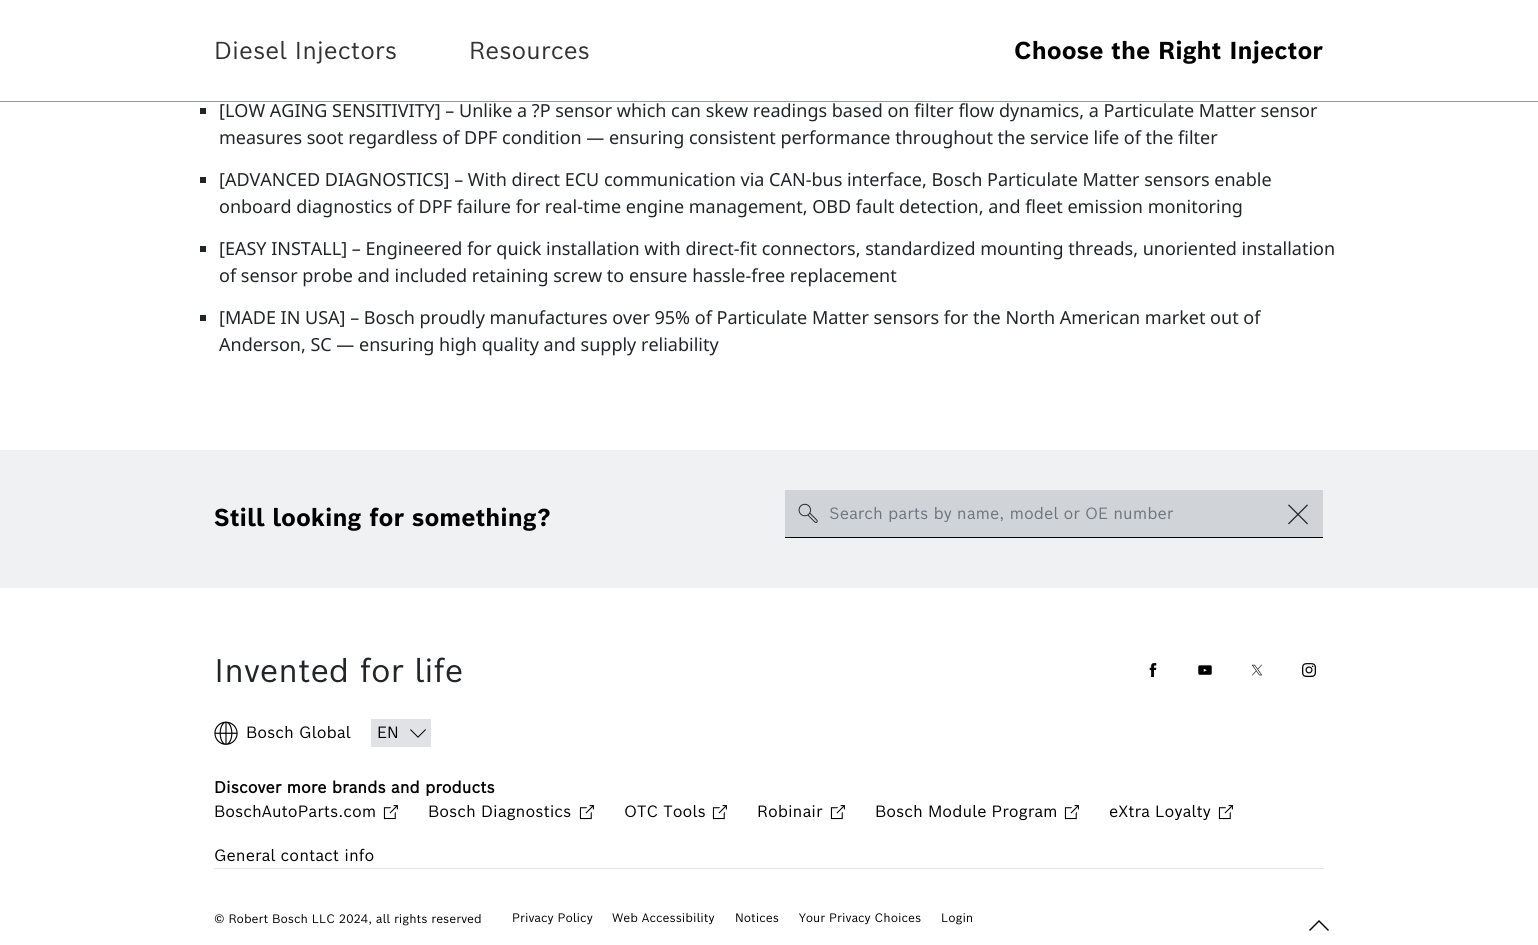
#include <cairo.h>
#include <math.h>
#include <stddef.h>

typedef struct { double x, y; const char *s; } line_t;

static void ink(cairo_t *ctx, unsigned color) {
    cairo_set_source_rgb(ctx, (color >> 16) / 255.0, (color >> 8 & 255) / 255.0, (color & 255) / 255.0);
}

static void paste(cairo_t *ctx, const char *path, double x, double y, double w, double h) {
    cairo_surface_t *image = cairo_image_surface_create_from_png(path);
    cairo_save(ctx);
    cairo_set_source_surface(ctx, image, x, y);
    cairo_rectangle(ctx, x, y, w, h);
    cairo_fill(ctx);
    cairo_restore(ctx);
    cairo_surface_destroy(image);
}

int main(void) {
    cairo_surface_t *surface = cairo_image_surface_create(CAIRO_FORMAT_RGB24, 1538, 945);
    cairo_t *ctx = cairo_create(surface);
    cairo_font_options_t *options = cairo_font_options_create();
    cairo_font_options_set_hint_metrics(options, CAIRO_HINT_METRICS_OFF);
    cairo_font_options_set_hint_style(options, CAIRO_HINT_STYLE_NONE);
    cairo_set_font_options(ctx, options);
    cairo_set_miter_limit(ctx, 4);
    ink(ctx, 0xFFFFFF);
    cairo_paint(ctx);
    ink(ctx, 0x979797);
    cairo_rectangle(ctx, 0, 101, 1538, 1);
    cairo_fill(ctx);
    cairo_select_font_face(ctx, "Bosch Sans", CAIRO_FONT_SLANT_NORMAL, CAIRO_FONT_WEIGHT_NORMAL);
    cairo_set_font_size(ctx, 24);
    ink(ctx, 0x333333);
    cairo_move_to(ctx, 214, 59);
    cairo_show_text(ctx, "Diesel Injectors");
    cairo_move_to(ctx, 469, 59);
    cairo_show_text(ctx, "Resources");
    cairo_select_font_face(ctx, "Bosch Sans", CAIRO_FONT_SLANT_NORMAL, CAIRO_FONT_WEIGHT_BOLD);
    ink(ctx, 0x000000);
    cairo_move_to(ctx, 1014, 59);
    cairo_show_text(ctx, "Choose the Right Injector");
    ink(ctx, 0x212529);
    cairo_rectangle(ctx, 200, 108, 6, 6);
    cairo_fill(ctx);
    cairo_select_font_face(ctx, "Noto Sans", CAIRO_FONT_SLANT_NORMAL, CAIRO_FONT_WEIGHT_NORMAL);
    cairo_set_font_size(ctx, 18);
    cairo_move_to(ctx, 219, 117);
    cairo_show_text(ctx, "[LOW AGING SENSITIVITY] – Unlike a ?P sensor which can skew readings based on filter flow dynamics, a Particulate Matter sensor");
    cairo_move_to(ctx, 219, 144);
    cairo_show_text(ctx, "measures soot regardless of DPF condition — ensuring consistent performance throughout the service life of the filter");
    cairo_rectangle(ctx, 200, 177, 6, 6);
    cairo_fill(ctx);
    cairo_move_to(ctx, 219, 186);
    cairo_show_text(ctx, "[ADVANCED DIAGNOSTICS] – With direct ECU communication via CAN-bus interface, Bosch Particulate Matter sensors enable");
    cairo_move_to(ctx, 219, 213);
    cairo_show_text(ctx, "onboard diagnostics of DPF failure for real-time engine management, OBD fault detection, and fleet emission monitoring");
    cairo_rectangle(ctx, 200, 246, 6, 6);
    cairo_fill(ctx);
    cairo_move_to(ctx, 219, 255);
    cairo_show_text(ctx, "[EASY INSTALL] – Engineered for quick installation with direct-fit connectors, standardized mounting threads, unoriented installation");
    cairo_move_to(ctx, 219, 282);
    cairo_show_text(ctx, "of sensor probe and included retaining screw to ensure hassle-free replacement");
    cairo_rectangle(ctx, 200, 315, 6, 6);
    cairo_fill(ctx);
    cairo_move_to(ctx, 219, 324);
    cairo_show_text(ctx, "[MADE IN USA] – Bosch proudly manufactures over 95% of Particulate Matter sensors for the North American market out of");
    cairo_move_to(ctx, 219, 351);
    cairo_show_text(ctx, "Anderson, SC — ensuring high quality and supply reliability");
    ink(ctx, 0xEFF1F2);
    cairo_rectangle(ctx, 0, 450, 1538, 138);
    cairo_fill(ctx);
    cairo_select_font_face(ctx, "Bosch Sans", CAIRO_FONT_SLANT_NORMAL, CAIRO_FONT_WEIGHT_BOLD);
    cairo_set_font_size(ctx, 24);
    ink(ctx, 0x000000);
    cairo_move_to(ctx, 214, 526);
    cairo_show_text(ctx, "Still looking for something?");
    ink(ctx, 0xD0D4D8);
    cairo_rectangle(ctx, 785, 490, 538, 47);
    cairo_fill(ctx);
    paste(ctx, "media/1.png", 798, 503, 20, 20);
    ink(ctx, 0x000000);
    cairo_rectangle(ctx, 785, 537, 538, 1);
    cairo_fill(ctx);
    cairo_select_font_face(ctx, "Bosch Sans", CAIRO_FONT_SLANT_NORMAL, CAIRO_FONT_WEIGHT_NORMAL);
    cairo_set_font_size(ctx, 16);
    ink(ctx, 0x6C757D);
    cairo_move_to(ctx, 829, 519);
    cairo_show_text(ctx, "Search parts by name, model or OE number");
    paste(ctx, "media/2.png", 1288, 504, 20, 21);
    cairo_set_font_size(ctx, 32);
    ink(ctx, 0x212529);
    cairo_move_to(ctx, 214, 682);
    cairo_show_text(ctx, "Invented for life");
    paste(ctx, "media/3.png", 1149, 663, 8, 14);
    paste(ctx, "media/4.png", 1198, 665, 14, 10);
    paste(ctx, "media/5.png", 1251, 664, 12, 12);
    paste(ctx, "media/6.png", 1302, 663, 14, 15);
    paste(ctx, "media/7.png", 214, 721, 24, 24);
    cairo_set_font_size(ctx, 16);
    ink(ctx, 0x000000);
    cairo_move_to(ctx, 246, 738);
    cairo_show_text(ctx, "Bosch Global");
    ink(ctx, 0xE0E2E5);
    cairo_rectangle(ctx, 371, 719, 60, 28);
    cairo_fill(ctx);
    ink(ctx, 0x000000);
    cairo_move_to(ctx, 377, 738);
    cairo_show_text(ctx, "EN");
    paste(ctx, "media/8.png", 410, 729, 16, 9);
    cairo_select_font_face(ctx, "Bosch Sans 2", CAIRO_FONT_SLANT_NORMAL, CAIRO_FONT_WEIGHT_BOLD);
    cairo_move_to(ctx, 214, 793);
    cairo_show_text(ctx, "Discover more brands and products");
    cairo_select_font_face(ctx, "Bosch Sans", CAIRO_FONT_SLANT_NORMAL, CAIRO_FONT_WEIGHT_NORMAL);
    cairo_move_to(ctx, 214, 817);
    cairo_show_text(ctx, "BoschAutoParts.com");
    paste(ctx, "media/9.png", 383, 805, 15, 15);
    cairo_move_to(ctx, 428, 817);
    cairo_show_text(ctx, "Bosch Diagnostics");
    paste(ctx, "media/9.png", 579, 805, 15, 15);
    cairo_move_to(ctx, 624, 817);
    cairo_show_text(ctx, "OTC Tools");
    paste(ctx, "media/9.png", 712, 805, 15, 15);
    cairo_move_to(ctx, 757, 817);
    cairo_show_text(ctx, "Robinair");
    paste(ctx, "media/9.png", 830, 805, 15, 15);
    cairo_move_to(ctx, 875, 817);
    cairo_show_text(ctx, "Bosch Module Program");
    paste(ctx, "media/9.png", 1064, 805, 15, 15);
    cairo_move_to(ctx, 1109, 817);
    cairo_show_text(ctx, "eXtra Loyalty");
    paste(ctx, "media/9.png", 1218, 805, 15, 15);
    cairo_move_to(ctx, 214, 861);
    cairo_show_text(ctx, "General contact info");
    ink(ctx, 0xE6E6E6);
    cairo_rectangle(ctx, 214, 868, 1110, 1);
    cairo_fill(ctx);
    cairo_set_font_size(ctx, 12);
    ink(ctx, 0x000000);
    {
        static const line_t items[] = {
            {214, 923, "© Robert Bosch LLC 2024, all rights reserved"},
            {512, 922, "Privacy Policy"},
            {612, 922, "Web Accessibility"},
            {735, 922, "Notices"},
            {799, 922, "Your Privacy Choices"},
            {941, 922, "Login"},
        };
        for (size_t i = 0; i < sizeof items / sizeof *items; i++) {
            cairo_move_to(ctx, items[i].x, items[i].y);
            cairo_show_text(ctx, items[i].s);
        }
    }
    cairo_new_path(ctx);
    cairo_move_to(ctx, 1328, 931);
    cairo_line_to(ctx, 1319, 922);
    cairo_line_to(ctx, 1310, 931);
    cairo_line_to(ctx, 1309, 930);
    cairo_line_to(ctx, 1319, 920);
    cairo_line_to(ctx, 1329, 930);
    cairo_close_path(ctx);
    cairo_fill(ctx);
    cairo_surface_write_to_png(surface, "image.png");
    cairo_font_options_destroy(options);
    cairo_destroy(ctx);
    cairo_surface_destroy(surface);
    return 0;
}
